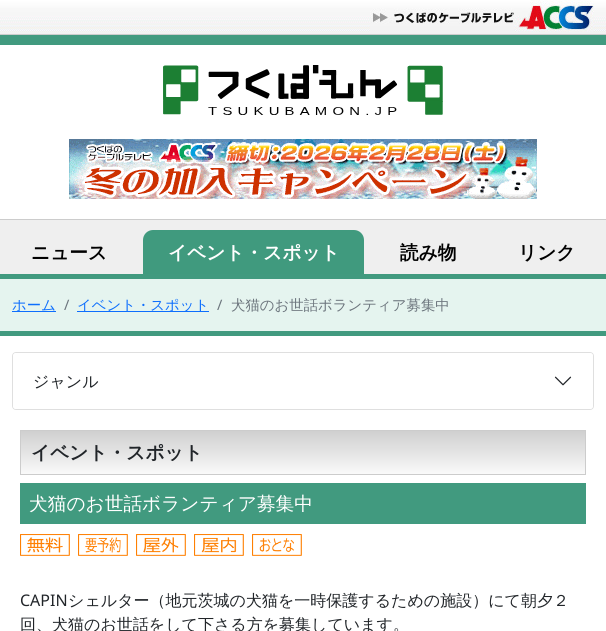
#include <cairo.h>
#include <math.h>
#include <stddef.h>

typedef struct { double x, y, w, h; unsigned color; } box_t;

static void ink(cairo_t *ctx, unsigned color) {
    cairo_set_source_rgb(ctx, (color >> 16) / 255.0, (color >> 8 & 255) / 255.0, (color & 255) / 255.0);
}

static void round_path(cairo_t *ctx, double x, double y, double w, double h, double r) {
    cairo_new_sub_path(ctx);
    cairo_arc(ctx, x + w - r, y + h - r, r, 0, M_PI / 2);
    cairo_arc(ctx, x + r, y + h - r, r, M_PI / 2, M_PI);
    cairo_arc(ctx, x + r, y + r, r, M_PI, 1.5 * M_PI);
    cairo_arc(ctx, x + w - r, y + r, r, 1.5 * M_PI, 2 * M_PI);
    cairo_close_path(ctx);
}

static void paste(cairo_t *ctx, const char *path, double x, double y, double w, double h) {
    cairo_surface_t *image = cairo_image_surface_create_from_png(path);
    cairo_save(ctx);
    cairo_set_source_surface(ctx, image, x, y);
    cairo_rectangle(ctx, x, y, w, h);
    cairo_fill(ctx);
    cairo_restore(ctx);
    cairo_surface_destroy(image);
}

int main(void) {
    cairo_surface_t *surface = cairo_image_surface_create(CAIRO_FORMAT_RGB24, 606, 631);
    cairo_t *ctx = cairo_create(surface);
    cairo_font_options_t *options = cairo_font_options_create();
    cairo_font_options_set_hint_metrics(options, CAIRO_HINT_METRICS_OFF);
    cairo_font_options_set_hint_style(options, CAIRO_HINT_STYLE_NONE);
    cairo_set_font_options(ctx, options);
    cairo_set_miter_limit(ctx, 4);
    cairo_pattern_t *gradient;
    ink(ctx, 0x419A7F);
    cairo_paint(ctx);
    paste(ctx, "media/1.png", 0, 0, 606, 35);
    paste(ctx, "media/2.png", 370, 0, 224, 32);
    ink(ctx, 0xFFFFFF);
    cairo_rectangle(ctx, 0, 45, 606, 174);
    cairo_fill(ctx);
    paste(ctx, "media/3.png", 163, 65, 280, 50);
    paste(ctx, "media/4.png", 69, 139, 468, 60);
    ink(ctx, 0xEFEFEF);
    cairo_rectangle(ctx, 0, 220, 606, 54);
    cairo_fill(ctx);
    ink(ctx, 0xCCCCCC);
    cairo_rectangle(ctx, 0, 219, 606, 1);
    cairo_fill(ctx);
    cairo_select_font_face(ctx, "WenQuanYi Zen Hei", CAIRO_FONT_SLANT_NORMAL, CAIRO_FONT_WEIGHT_BOLD);
    cairo_set_font_size(ctx, 18.7);
    ink(ctx, 0x000000);
    cairo_move_to(ctx, 31, 259);
    cairo_show_text(ctx, "ニュース");
    ink(ctx, 0x409A7E);
    cairo_new_path(ctx);
    cairo_move_to(ctx, 153, 230);
    cairo_line_to(ctx, 354, 230);
    cairo_curve_to(ctx, 359.5, 230, 364, 234.5, 364, 240);
    cairo_line_to(ctx, 364, 274);
    cairo_line_to(ctx, 143, 274);
    cairo_line_to(ctx, 143, 240);
    cairo_curve_to(ctx, 143, 234.5, 147.5, 230, 153, 230);
    cairo_close_path(ctx);
    cairo_fill(ctx);
    ink(ctx, 0xFFFFFF);
    cairo_move_to(ctx, 168, 259);
    cairo_show_text(ctx, "イベント・スポット");
    ink(ctx, 0x000000);
    cairo_move_to(ctx, 400, 259);
    cairo_show_text(ctx, "読み物");
    cairo_move_to(ctx, 518, 259);
    cairo_show_text(ctx, "リンク");
    {
        static const box_t items[] = {
            {0, 336, 606, 295, 0xFFFFFF},
            {0, 279, 606, 52, 0xE5F4EF},
            {12, 311, 44, 1, 0x0D6EFD},
        };
        for (size_t i = 0; i < sizeof items / sizeof *items; i++) {
            ink(ctx, items[i].color);
            cairo_rectangle(ctx, items[i].x, items[i].y, items[i].w, items[i].h);
            cairo_fill(ctx);
        }
    }
    cairo_select_font_face(ctx, "WenQuanYi Zen Hei Medium", CAIRO_FONT_SLANT_NORMAL, CAIRO_FONT_WEIGHT_NORMAL);
    cairo_set_font_size(ctx, 14.4);
    cairo_move_to(ctx, 12, 310);
    cairo_show_text(ctx, "ホーム");
    cairo_select_font_face(ctx, "Noto Sans", CAIRO_FONT_SLANT_NORMAL, CAIRO_FONT_WEIGHT_NORMAL);
    ink(ctx, 0x6C757D);
    cairo_move_to(ctx, 64, 310);
    cairo_show_text(ctx, "/");
    ink(ctx, 0x0D6EFD);
    cairo_rectangle(ctx, 77, 311, 132, 1);
    cairo_fill(ctx);
    cairo_select_font_face(ctx, "WenQuanYi Zen Hei Medium", CAIRO_FONT_SLANT_NORMAL, CAIRO_FONT_WEIGHT_NORMAL);
    cairo_move_to(ctx, 77, 310);
    cairo_show_text(ctx, "イベント・スポット");
    cairo_select_font_face(ctx, "Noto Sans", CAIRO_FONT_SLANT_NORMAL, CAIRO_FONT_WEIGHT_NORMAL);
    ink(ctx, 0x6C757D);
    cairo_move_to(ctx, 217, 310);
    cairo_show_text(ctx, "/");
    cairo_select_font_face(ctx, "WenQuanYi Zen Hei Medium", CAIRO_FONT_SLANT_NORMAL, CAIRO_FONT_WEIGHT_NORMAL);
    cairo_move_to(ctx, 231, 310);
    cairo_show_text(ctx, "犬猫のお世話ボランティア募集中");
    round_path(ctx, 12.5, 352.5, 581, 57, 3.5);
    ink(ctx, 0xDFDFDF);
    cairo_set_line_width(ctx, 1);
    cairo_stroke(ctx);
    ink(ctx, 0xFFFFFF);
    round_path(ctx, 13, 353, 580, 56, 3);
    cairo_fill(ctx);
    cairo_set_font_size(ctx, 16);
    ink(ctx, 0x212529);
    cairo_move_to(ctx, 33, 387);
    cairo_show_text(ctx, "ジャンル");
    paste(ctx, "media/5.png", 554, 376, 18, 10);
    gradient = cairo_pattern_create_linear(303, 431, 303, 474);
    cairo_pattern_add_color_stop_rgba(gradient, 0, 0.812, 0.812, 0.812, 1);
    cairo_pattern_add_color_stop_rgba(gradient, 1, 0.98, 0.98, 0.98, 1);
    cairo_set_source(ctx, gradient);
    cairo_pattern_destroy(gradient);
    cairo_rectangle(ctx, 21, 431, 564, 43);
    cairo_fill(ctx);
    cairo_rectangle(ctx, 20.5, 430.5, 565, 44);
    ink(ctx, 0xCCCCCC);
    cairo_stroke(ctx);
    cairo_select_font_face(ctx, "WenQuanYi Zen Hei", CAIRO_FONT_SLANT_NORMAL, CAIRO_FONT_WEIGHT_BOLD);
    cairo_set_font_size(ctx, 18.7);
    ink(ctx, 0x212529);
    cairo_move_to(ctx, 31, 459);
    cairo_show_text(ctx, "イベント・スポット");
    ink(ctx, 0x419A7F);
    cairo_rectangle(ctx, 20, 483, 566, 41);
    cairo_fill(ctx);
    cairo_select_font_face(ctx, "WenQuanYi Zen Hei Medium", CAIRO_FONT_SLANT_NORMAL, CAIRO_FONT_WEIGHT_NORMAL);
    ink(ctx, 0xFFFFFF);
    cairo_move_to(ctx, 29, 510);
    cairo_show_text(ctx, "犬猫のお世話ボランティア募集中");
    paste(ctx, "media/6.png", 20, 534, 50, 22);
    paste(ctx, "media/7.png", 78, 534, 50, 22);
    paste(ctx, "media/8.png", 136, 534, 50, 22);
    paste(ctx, "media/9.png", 194, 534, 50, 22);
    paste(ctx, "media/10.png", 252, 534, 50, 22);
    cairo_select_font_face(ctx, "Noto Sans", CAIRO_FONT_SLANT_NORMAL, CAIRO_FONT_WEIGHT_NORMAL);
    cairo_set_font_size(ctx, 16);
    ink(ctx, 0x212529);
    cairo_move_to(ctx, 20, 606);
    cairo_show_text(ctx, "CAPIN");
    cairo_select_font_face(ctx, "WenQuanYi Zen Hei Medium", CAIRO_FONT_SLANT_NORMAL, CAIRO_FONT_WEIGHT_NORMAL);
    cairo_move_to(ctx, 68, 606);
    cairo_show_text(ctx, "シェルター（地元茨城の犬猫を一時保護するための施設）にて朝夕２");
    cairo_move_to(ctx, 20, 630);
    cairo_show_text(ctx, "回、犬猫のお世話をして下さる方を募集しています。");
    cairo_surface_write_to_png(surface, "image.png");
    cairo_font_options_destroy(options);
    cairo_destroy(ctx);
    cairo_surface_destroy(surface);
    return 0;
}
